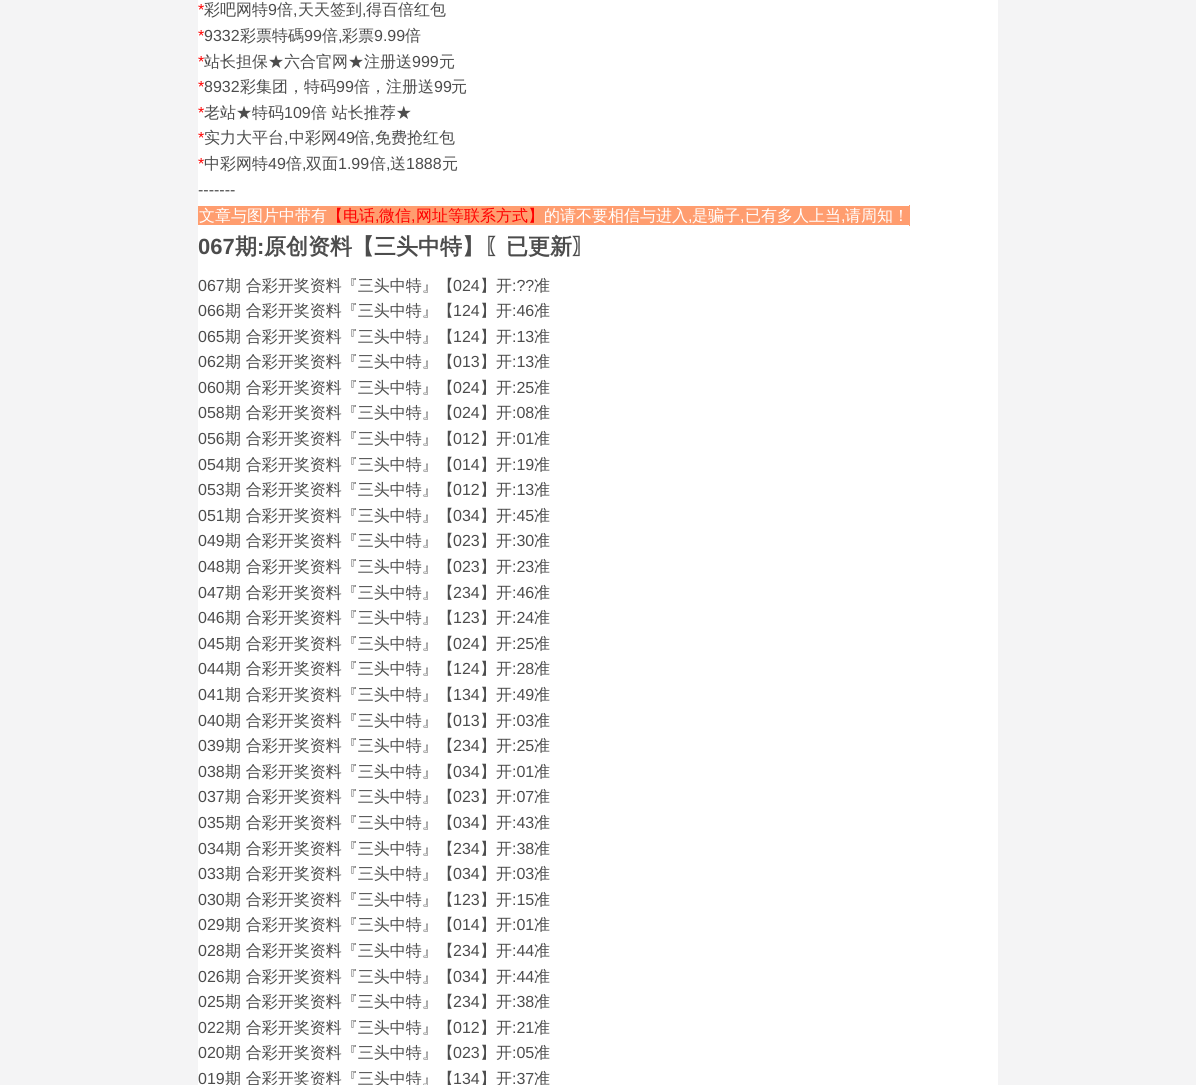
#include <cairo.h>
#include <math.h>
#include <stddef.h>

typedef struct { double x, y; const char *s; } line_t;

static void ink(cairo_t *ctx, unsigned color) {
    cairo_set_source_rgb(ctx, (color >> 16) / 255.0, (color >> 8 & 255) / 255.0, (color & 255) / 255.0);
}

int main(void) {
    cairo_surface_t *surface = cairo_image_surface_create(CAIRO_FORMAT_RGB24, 1196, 1085);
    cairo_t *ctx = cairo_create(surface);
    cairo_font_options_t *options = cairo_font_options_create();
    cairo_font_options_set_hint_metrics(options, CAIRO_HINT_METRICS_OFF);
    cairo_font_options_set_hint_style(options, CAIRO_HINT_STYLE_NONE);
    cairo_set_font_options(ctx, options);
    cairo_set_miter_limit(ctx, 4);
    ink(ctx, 0xF4F4F5);
    cairo_paint(ctx);
    ink(ctx, 0xFFFFFF);
    cairo_rectangle(ctx, 198, 0, 800, 1085);
    cairo_fill(ctx);
    cairo_select_font_face(ctx, "Liberation Sans", CAIRO_FONT_SLANT_NORMAL, CAIRO_FONT_WEIGHT_NORMAL);
    cairo_set_font_size(ctx, 16);
    ink(ctx, 0xFF0000);
    cairo_move_to(ctx, 198, 15);
    cairo_show_text(ctx, "*");
    cairo_select_font_face(ctx, "WenQuanYi Zen Hei Medium", CAIRO_FONT_SLANT_NORMAL, CAIRO_FONT_WEIGHT_NORMAL);
    ink(ctx, 0x4C4C4C);
    cairo_move_to(ctx, 204, 15);
    cairo_show_text(ctx, "彩吧网特");
    cairo_select_font_face(ctx, "Liberation Sans", CAIRO_FONT_SLANT_NORMAL, CAIRO_FONT_WEIGHT_NORMAL);
    cairo_move_to(ctx, 268, 15);
    cairo_show_text(ctx, "9");
    cairo_select_font_face(ctx, "WenQuanYi Zen Hei Medium", CAIRO_FONT_SLANT_NORMAL, CAIRO_FONT_WEIGHT_NORMAL);
    {
        static const line_t items[] = {
            {277, 15, "倍"},
            {298, 15, "天天签到"},
            {366, 15, "得百倍红包"},
        };
        for (size_t i = 0; i < sizeof items / sizeof *items; i++) {
            cairo_move_to(ctx, items[i].x, items[i].y);
            cairo_show_text(ctx, items[i].s);
        }
    }
    cairo_select_font_face(ctx, "Liberation Sans", CAIRO_FONT_SLANT_NORMAL, CAIRO_FONT_WEIGHT_NORMAL);
    cairo_move_to(ctx, 293, 15);
    cairo_show_text(ctx, ",");
    cairo_move_to(ctx, 362, 15);
    cairo_show_text(ctx, ",");
    ink(ctx, 0xFF0000);
    cairo_move_to(ctx, 198, 41);
    cairo_show_text(ctx, "*");
    ink(ctx, 0x4C4C4C);
    cairo_move_to(ctx, 204, 41);
    cairo_show_text(ctx, "9332");
    cairo_select_font_face(ctx, "WenQuanYi Zen Hei Medium", CAIRO_FONT_SLANT_NORMAL, CAIRO_FONT_WEIGHT_NORMAL);
    cairo_move_to(ctx, 240, 41);
    cairo_show_text(ctx, "彩票特碼");
    cairo_select_font_face(ctx, "Liberation Sans", CAIRO_FONT_SLANT_NORMAL, CAIRO_FONT_WEIGHT_NORMAL);
    cairo_move_to(ctx, 304, 41);
    cairo_show_text(ctx, "99");
    cairo_select_font_face(ctx, "WenQuanYi Zen Hei Medium", CAIRO_FONT_SLANT_NORMAL, CAIRO_FONT_WEIGHT_NORMAL);
    cairo_move_to(ctx, 322, 41);
    cairo_show_text(ctx, "倍");
    cairo_move_to(ctx, 342, 41);
    cairo_show_text(ctx, "彩票");
    cairo_select_font_face(ctx, "Liberation Sans", CAIRO_FONT_SLANT_NORMAL, CAIRO_FONT_WEIGHT_NORMAL);
    cairo_move_to(ctx, 374, 41);
    cairo_show_text(ctx, "9.99");
    cairo_select_font_face(ctx, "WenQuanYi Zen Hei Medium", CAIRO_FONT_SLANT_NORMAL, CAIRO_FONT_WEIGHT_NORMAL);
    cairo_move_to(ctx, 405, 41);
    cairo_show_text(ctx, "倍");
    cairo_select_font_face(ctx, "Liberation Sans", CAIRO_FONT_SLANT_NORMAL, CAIRO_FONT_WEIGHT_NORMAL);
    cairo_move_to(ctx, 338, 41);
    cairo_show_text(ctx, ",");
    ink(ctx, 0xFF0000);
    cairo_move_to(ctx, 198, 67);
    cairo_show_text(ctx, "*");
    cairo_select_font_face(ctx, "WenQuanYi Zen Hei Medium", CAIRO_FONT_SLANT_NORMAL, CAIRO_FONT_WEIGHT_NORMAL);
    ink(ctx, 0x4C4C4C);
    cairo_move_to(ctx, 204, 67);
    cairo_show_text(ctx, "站长担保★六合官网★注册送");
    cairo_select_font_face(ctx, "Liberation Sans", CAIRO_FONT_SLANT_NORMAL, CAIRO_FONT_WEIGHT_NORMAL);
    cairo_move_to(ctx, 412, 67);
    cairo_show_text(ctx, "999");
    cairo_select_font_face(ctx, "WenQuanYi Zen Hei Medium", CAIRO_FONT_SLANT_NORMAL, CAIRO_FONT_WEIGHT_NORMAL);
    cairo_move_to(ctx, 439, 67);
    cairo_show_text(ctx, "元");
    cairo_select_font_face(ctx, "Liberation Sans", CAIRO_FONT_SLANT_NORMAL, CAIRO_FONT_WEIGHT_NORMAL);
    ink(ctx, 0xFF0000);
    cairo_move_to(ctx, 198, 92);
    cairo_show_text(ctx, "*");
    ink(ctx, 0x4C4C4C);
    cairo_move_to(ctx, 204, 92);
    cairo_show_text(ctx, "8932");
    cairo_select_font_face(ctx, "WenQuanYi Zen Hei Medium", CAIRO_FONT_SLANT_NORMAL, CAIRO_FONT_WEIGHT_NORMAL);
    cairo_move_to(ctx, 240, 92);
    cairo_show_text(ctx, "彩集团，特码");
    cairo_select_font_face(ctx, "Liberation Sans", CAIRO_FONT_SLANT_NORMAL, CAIRO_FONT_WEIGHT_NORMAL);
    cairo_move_to(ctx, 336, 92);
    cairo_show_text(ctx, "99");
    cairo_select_font_face(ctx, "WenQuanYi Zen Hei Medium", CAIRO_FONT_SLANT_NORMAL, CAIRO_FONT_WEIGHT_NORMAL);
    cairo_move_to(ctx, 354, 92);
    cairo_show_text(ctx, "倍，注册送");
    cairo_select_font_face(ctx, "Liberation Sans", CAIRO_FONT_SLANT_NORMAL, CAIRO_FONT_WEIGHT_NORMAL);
    cairo_move_to(ctx, 434, 92);
    cairo_show_text(ctx, "99");
    cairo_select_font_face(ctx, "WenQuanYi Zen Hei Medium", CAIRO_FONT_SLANT_NORMAL, CAIRO_FONT_WEIGHT_NORMAL);
    cairo_move_to(ctx, 451, 92);
    cairo_show_text(ctx, "元");
    cairo_select_font_face(ctx, "Liberation Sans", CAIRO_FONT_SLANT_NORMAL, CAIRO_FONT_WEIGHT_NORMAL);
    ink(ctx, 0xFF0000);
    cairo_move_to(ctx, 198, 118);
    cairo_show_text(ctx, "*");
    cairo_select_font_face(ctx, "WenQuanYi Zen Hei Medium", CAIRO_FONT_SLANT_NORMAL, CAIRO_FONT_WEIGHT_NORMAL);
    ink(ctx, 0x4C4C4C);
    cairo_move_to(ctx, 204, 118);
    cairo_show_text(ctx, "老站★特码");
    cairo_select_font_face(ctx, "Liberation Sans", CAIRO_FONT_SLANT_NORMAL, CAIRO_FONT_WEIGHT_NORMAL);
    cairo_move_to(ctx, 284, 118);
    cairo_show_text(ctx, "109");
    cairo_select_font_face(ctx, "WenQuanYi Zen Hei Medium", CAIRO_FONT_SLANT_NORMAL, CAIRO_FONT_WEIGHT_NORMAL);
    cairo_move_to(ctx, 311, 118);
    cairo_show_text(ctx, "倍 站长推荐★");
    cairo_select_font_face(ctx, "Liberation Sans", CAIRO_FONT_SLANT_NORMAL, CAIRO_FONT_WEIGHT_NORMAL);
    ink(ctx, 0xFF0000);
    cairo_move_to(ctx, 198, 143);
    cairo_show_text(ctx, "*");
    cairo_select_font_face(ctx, "WenQuanYi Zen Hei Medium", CAIRO_FONT_SLANT_NORMAL, CAIRO_FONT_WEIGHT_NORMAL);
    ink(ctx, 0x4C4C4C);
    cairo_move_to(ctx, 204, 143);
    cairo_show_text(ctx, "实力大平台");
    cairo_move_to(ctx, 289, 143);
    cairo_show_text(ctx, "中彩网");
    cairo_select_font_face(ctx, "Liberation Sans", CAIRO_FONT_SLANT_NORMAL, CAIRO_FONT_WEIGHT_NORMAL);
    cairo_move_to(ctx, 337, 143);
    cairo_show_text(ctx, "49");
    cairo_select_font_face(ctx, "WenQuanYi Zen Hei Medium", CAIRO_FONT_SLANT_NORMAL, CAIRO_FONT_WEIGHT_NORMAL);
    cairo_move_to(ctx, 354, 143);
    cairo_show_text(ctx, "倍");
    cairo_move_to(ctx, 375, 143);
    cairo_show_text(ctx, "免费抢红包");
    cairo_select_font_face(ctx, "Liberation Sans", CAIRO_FONT_SLANT_NORMAL, CAIRO_FONT_WEIGHT_NORMAL);
    cairo_move_to(ctx, 284, 143);
    cairo_show_text(ctx, ",");
    cairo_move_to(ctx, 370, 143);
    cairo_show_text(ctx, ",");
    ink(ctx, 0xFF0000);
    cairo_move_to(ctx, 198, 169);
    cairo_show_text(ctx, "*");
    cairo_select_font_face(ctx, "WenQuanYi Zen Hei Medium", CAIRO_FONT_SLANT_NORMAL, CAIRO_FONT_WEIGHT_NORMAL);
    ink(ctx, 0x4C4C4C);
    cairo_move_to(ctx, 204, 169);
    cairo_show_text(ctx, "中彩网特");
    cairo_select_font_face(ctx, "Liberation Sans", CAIRO_FONT_SLANT_NORMAL, CAIRO_FONT_WEIGHT_NORMAL);
    cairo_move_to(ctx, 268, 169);
    cairo_show_text(ctx, "49");
    cairo_select_font_face(ctx, "WenQuanYi Zen Hei Medium", CAIRO_FONT_SLANT_NORMAL, CAIRO_FONT_WEIGHT_NORMAL);
    cairo_move_to(ctx, 286, 169);
    cairo_show_text(ctx, "倍");
    cairo_move_to(ctx, 306, 169);
    cairo_show_text(ctx, "双面");
    cairo_select_font_face(ctx, "Liberation Sans", CAIRO_FONT_SLANT_NORMAL, CAIRO_FONT_WEIGHT_NORMAL);
    cairo_move_to(ctx, 338, 169);
    cairo_show_text(ctx, "1.99");
    cairo_select_font_face(ctx, "WenQuanYi Zen Hei Medium", CAIRO_FONT_SLANT_NORMAL, CAIRO_FONT_WEIGHT_NORMAL);
    cairo_move_to(ctx, 370, 169);
    cairo_show_text(ctx, "倍");
    cairo_move_to(ctx, 390, 169);
    cairo_show_text(ctx, "送");
    cairo_select_font_face(ctx, "Liberation Sans", CAIRO_FONT_SLANT_NORMAL, CAIRO_FONT_WEIGHT_NORMAL);
    cairo_move_to(ctx, 406, 169);
    cairo_show_text(ctx, "1888");
    cairo_select_font_face(ctx, "WenQuanYi Zen Hei Medium", CAIRO_FONT_SLANT_NORMAL, CAIRO_FONT_WEIGHT_NORMAL);
    cairo_move_to(ctx, 442, 169);
    cairo_show_text(ctx, "元");
    cairo_select_font_face(ctx, "Liberation Sans", CAIRO_FONT_SLANT_NORMAL, CAIRO_FONT_WEIGHT_NORMAL);
    {
        static const line_t items[] = {
            {302, 169, ","},
            {386, 169, ","},
            {198, 195, "-------"},
        };
        for (size_t i = 0; i < sizeof items / sizeof *items; i++) {
            cairo_move_to(ctx, items[i].x, items[i].y);
            cairo_show_text(ctx, items[i].s);
        }
    }
    ink(ctx, 0xFF9D6F);
    cairo_rectangle(ctx, 198, 206, 711, 19);
    cairo_fill(ctx);
    cairo_select_font_face(ctx, "WenQuanYi Zen Hei Medium", CAIRO_FONT_SLANT_NORMAL, CAIRO_FONT_WEIGHT_NORMAL);
    ink(ctx, 0xFFFFFF);
    cairo_move_to(ctx, 199, 221);
    cairo_show_text(ctx, "文章与图片中带有");
    ink(ctx, 0xFF0000);
    cairo_move_to(ctx, 327, 221);
    cairo_show_text(ctx, "【电话");
    cairo_select_font_face(ctx, "Liberation Sans", CAIRO_FONT_SLANT_NORMAL, CAIRO_FONT_WEIGHT_NORMAL);
    cairo_move_to(ctx, 375, 221);
    cairo_show_text(ctx, ",");
    cairo_select_font_face(ctx, "WenQuanYi Zen Hei Medium", CAIRO_FONT_SLANT_NORMAL, CAIRO_FONT_WEIGHT_NORMAL);
    cairo_move_to(ctx, 379, 221);
    cairo_show_text(ctx, "微信");
    cairo_select_font_face(ctx, "Liberation Sans", CAIRO_FONT_SLANT_NORMAL, CAIRO_FONT_WEIGHT_NORMAL);
    cairo_move_to(ctx, 411, 221);
    cairo_show_text(ctx, ",");
    cairo_select_font_face(ctx, "WenQuanYi Zen Hei Medium", CAIRO_FONT_SLANT_NORMAL, CAIRO_FONT_WEIGHT_NORMAL);
    cairo_move_to(ctx, 416, 221);
    cairo_show_text(ctx, "网址等联系方式】");
    ink(ctx, 0xFFFFFF);
    cairo_move_to(ctx, 544, 221);
    cairo_show_text(ctx, "的请不要相信与进入");
    cairo_select_font_face(ctx, "Liberation Sans", CAIRO_FONT_SLANT_NORMAL, CAIRO_FONT_WEIGHT_NORMAL);
    cairo_move_to(ctx, 688, 221);
    cairo_show_text(ctx, ",");
    cairo_select_font_face(ctx, "WenQuanYi Zen Hei Medium", CAIRO_FONT_SLANT_NORMAL, CAIRO_FONT_WEIGHT_NORMAL);
    cairo_move_to(ctx, 692, 221);
    cairo_show_text(ctx, "是骗子");
    cairo_select_font_face(ctx, "Liberation Sans", CAIRO_FONT_SLANT_NORMAL, CAIRO_FONT_WEIGHT_NORMAL);
    cairo_move_to(ctx, 740, 221);
    cairo_show_text(ctx, ",");
    cairo_select_font_face(ctx, "WenQuanYi Zen Hei Medium", CAIRO_FONT_SLANT_NORMAL, CAIRO_FONT_WEIGHT_NORMAL);
    cairo_move_to(ctx, 745, 221);
    cairo_show_text(ctx, "已有多人上当");
    cairo_select_font_face(ctx, "Liberation Sans", CAIRO_FONT_SLANT_NORMAL, CAIRO_FONT_WEIGHT_NORMAL);
    cairo_move_to(ctx, 841, 221);
    cairo_show_text(ctx, ",");
    cairo_select_font_face(ctx, "WenQuanYi Zen Hei Medium", CAIRO_FONT_SLANT_NORMAL, CAIRO_FONT_WEIGHT_NORMAL);
    cairo_move_to(ctx, 845, 221);
    cairo_show_text(ctx, "请周知！");
    ink(ctx, 0xFF9D6F);
    cairo_rectangle(ctx, 909, 205, 1, 21);
    cairo_fill(ctx);
    cairo_select_font_face(ctx, "Liberation Sans", CAIRO_FONT_SLANT_NORMAL, CAIRO_FONT_WEIGHT_BOLD);
    cairo_set_font_size(ctx, 22);
    ink(ctx, 0x4C4C4C);
    cairo_move_to(ctx, 198, 254);
    cairo_show_text(ctx, "067");
    cairo_select_font_face(ctx, "WenQuanYi Zen Hei", CAIRO_FONT_SLANT_NORMAL, CAIRO_FONT_WEIGHT_BOLD);
    cairo_move_to(ctx, 235, 254);
    cairo_show_text(ctx, "期");
    cairo_select_font_face(ctx, "Liberation Sans", CAIRO_FONT_SLANT_NORMAL, CAIRO_FONT_WEIGHT_BOLD);
    cairo_move_to(ctx, 257, 254);
    cairo_show_text(ctx, ":");
    cairo_select_font_face(ctx, "WenQuanYi Zen Hei", CAIRO_FONT_SLANT_NORMAL, CAIRO_FONT_WEIGHT_BOLD);
    cairo_move_to(ctx, 264, 254);
    cairo_show_text(ctx, "原创资料【三头中特】〖已更新〗");
    cairo_select_font_face(ctx, "Liberation Sans", CAIRO_FONT_SLANT_NORMAL, CAIRO_FONT_WEIGHT_NORMAL);
    cairo_set_font_size(ctx, 16);
    cairo_move_to(ctx, 198, 291);
    cairo_show_text(ctx, "067");
    cairo_select_font_face(ctx, "WenQuanYi Zen Hei Medium", CAIRO_FONT_SLANT_NORMAL, CAIRO_FONT_WEIGHT_NORMAL);
    cairo_move_to(ctx, 225, 291);
    cairo_show_text(ctx, "期 合彩开奖资料『三头中特』【");
    cairo_select_font_face(ctx, "Liberation Sans", CAIRO_FONT_SLANT_NORMAL, CAIRO_FONT_WEIGHT_NORMAL);
    cairo_move_to(ctx, 453, 291);
    cairo_show_text(ctx, "024");
    cairo_select_font_face(ctx, "WenQuanYi Zen Hei Medium", CAIRO_FONT_SLANT_NORMAL, CAIRO_FONT_WEIGHT_NORMAL);
    cairo_move_to(ctx, 480, 291);
    cairo_show_text(ctx, "】开");
    cairo_select_font_face(ctx, "Liberation Sans", CAIRO_FONT_SLANT_NORMAL, CAIRO_FONT_WEIGHT_NORMAL);
    cairo_move_to(ctx, 512, 291);
    cairo_show_text(ctx, ":?\077");
    cairo_select_font_face(ctx, "WenQuanYi Zen Hei Medium", CAIRO_FONT_SLANT_NORMAL, CAIRO_FONT_WEIGHT_NORMAL);
    cairo_move_to(ctx, 534, 291);
    cairo_show_text(ctx, "准");
    cairo_select_font_face(ctx, "Liberation Sans", CAIRO_FONT_SLANT_NORMAL, CAIRO_FONT_WEIGHT_NORMAL);
    cairo_move_to(ctx, 198, 316);
    cairo_show_text(ctx, "066");
    cairo_select_font_face(ctx, "WenQuanYi Zen Hei Medium", CAIRO_FONT_SLANT_NORMAL, CAIRO_FONT_WEIGHT_NORMAL);
    cairo_move_to(ctx, 225, 316);
    cairo_show_text(ctx, "期 合彩开奖资料『三头中特』【");
    cairo_select_font_face(ctx, "Liberation Sans", CAIRO_FONT_SLANT_NORMAL, CAIRO_FONT_WEIGHT_NORMAL);
    cairo_move_to(ctx, 453, 316);
    cairo_show_text(ctx, "124");
    cairo_select_font_face(ctx, "WenQuanYi Zen Hei Medium", CAIRO_FONT_SLANT_NORMAL, CAIRO_FONT_WEIGHT_NORMAL);
    cairo_move_to(ctx, 480, 316);
    cairo_show_text(ctx, "】开");
    cairo_select_font_face(ctx, "Liberation Sans", CAIRO_FONT_SLANT_NORMAL, CAIRO_FONT_WEIGHT_NORMAL);
    cairo_move_to(ctx, 512, 316);
    cairo_show_text(ctx, ":46");
    cairo_select_font_face(ctx, "WenQuanYi Zen Hei Medium", CAIRO_FONT_SLANT_NORMAL, CAIRO_FONT_WEIGHT_NORMAL);
    cairo_move_to(ctx, 534, 316);
    cairo_show_text(ctx, "准");
    cairo_select_font_face(ctx, "Liberation Sans", CAIRO_FONT_SLANT_NORMAL, CAIRO_FONT_WEIGHT_NORMAL);
    cairo_move_to(ctx, 198, 342);
    cairo_show_text(ctx, "065");
    cairo_select_font_face(ctx, "WenQuanYi Zen Hei Medium", CAIRO_FONT_SLANT_NORMAL, CAIRO_FONT_WEIGHT_NORMAL);
    cairo_move_to(ctx, 225, 342);
    cairo_show_text(ctx, "期 合彩开奖资料『三头中特』【");
    cairo_select_font_face(ctx, "Liberation Sans", CAIRO_FONT_SLANT_NORMAL, CAIRO_FONT_WEIGHT_NORMAL);
    cairo_move_to(ctx, 453, 342);
    cairo_show_text(ctx, "124");
    cairo_select_font_face(ctx, "WenQuanYi Zen Hei Medium", CAIRO_FONT_SLANT_NORMAL, CAIRO_FONT_WEIGHT_NORMAL);
    cairo_move_to(ctx, 480, 342);
    cairo_show_text(ctx, "】开");
    cairo_select_font_face(ctx, "Liberation Sans", CAIRO_FONT_SLANT_NORMAL, CAIRO_FONT_WEIGHT_NORMAL);
    cairo_move_to(ctx, 512, 342);
    cairo_show_text(ctx, ":13");
    cairo_select_font_face(ctx, "WenQuanYi Zen Hei Medium", CAIRO_FONT_SLANT_NORMAL, CAIRO_FONT_WEIGHT_NORMAL);
    cairo_move_to(ctx, 534, 342);
    cairo_show_text(ctx, "准");
    cairo_select_font_face(ctx, "Liberation Sans", CAIRO_FONT_SLANT_NORMAL, CAIRO_FONT_WEIGHT_NORMAL);
    cairo_move_to(ctx, 198, 367);
    cairo_show_text(ctx, "062");
    cairo_select_font_face(ctx, "WenQuanYi Zen Hei Medium", CAIRO_FONT_SLANT_NORMAL, CAIRO_FONT_WEIGHT_NORMAL);
    cairo_move_to(ctx, 225, 367);
    cairo_show_text(ctx, "期 合彩开奖资料『三头中特』【");
    cairo_select_font_face(ctx, "Liberation Sans", CAIRO_FONT_SLANT_NORMAL, CAIRO_FONT_WEIGHT_NORMAL);
    cairo_move_to(ctx, 453, 367);
    cairo_show_text(ctx, "013");
    cairo_select_font_face(ctx, "WenQuanYi Zen Hei Medium", CAIRO_FONT_SLANT_NORMAL, CAIRO_FONT_WEIGHT_NORMAL);
    cairo_move_to(ctx, 480, 367);
    cairo_show_text(ctx, "】开");
    cairo_select_font_face(ctx, "Liberation Sans", CAIRO_FONT_SLANT_NORMAL, CAIRO_FONT_WEIGHT_NORMAL);
    cairo_move_to(ctx, 512, 367);
    cairo_show_text(ctx, ":13");
    cairo_select_font_face(ctx, "WenQuanYi Zen Hei Medium", CAIRO_FONT_SLANT_NORMAL, CAIRO_FONT_WEIGHT_NORMAL);
    cairo_move_to(ctx, 534, 367);
    cairo_show_text(ctx, "准");
    cairo_select_font_face(ctx, "Liberation Sans", CAIRO_FONT_SLANT_NORMAL, CAIRO_FONT_WEIGHT_NORMAL);
    cairo_move_to(ctx, 198, 393);
    cairo_show_text(ctx, "060");
    cairo_select_font_face(ctx, "WenQuanYi Zen Hei Medium", CAIRO_FONT_SLANT_NORMAL, CAIRO_FONT_WEIGHT_NORMAL);
    cairo_move_to(ctx, 225, 393);
    cairo_show_text(ctx, "期 合彩开奖资料『三头中特』【");
    cairo_select_font_face(ctx, "Liberation Sans", CAIRO_FONT_SLANT_NORMAL, CAIRO_FONT_WEIGHT_NORMAL);
    cairo_move_to(ctx, 453, 393);
    cairo_show_text(ctx, "024");
    cairo_select_font_face(ctx, "WenQuanYi Zen Hei Medium", CAIRO_FONT_SLANT_NORMAL, CAIRO_FONT_WEIGHT_NORMAL);
    cairo_move_to(ctx, 480, 393);
    cairo_show_text(ctx, "】开");
    cairo_select_font_face(ctx, "Liberation Sans", CAIRO_FONT_SLANT_NORMAL, CAIRO_FONT_WEIGHT_NORMAL);
    cairo_move_to(ctx, 512, 393);
    cairo_show_text(ctx, ":25");
    cairo_select_font_face(ctx, "WenQuanYi Zen Hei Medium", CAIRO_FONT_SLANT_NORMAL, CAIRO_FONT_WEIGHT_NORMAL);
    cairo_move_to(ctx, 534, 393);
    cairo_show_text(ctx, "准");
    cairo_select_font_face(ctx, "Liberation Sans", CAIRO_FONT_SLANT_NORMAL, CAIRO_FONT_WEIGHT_NORMAL);
    cairo_move_to(ctx, 198, 418);
    cairo_show_text(ctx, "058");
    cairo_select_font_face(ctx, "WenQuanYi Zen Hei Medium", CAIRO_FONT_SLANT_NORMAL, CAIRO_FONT_WEIGHT_NORMAL);
    cairo_move_to(ctx, 225, 418);
    cairo_show_text(ctx, "期 合彩开奖资料『三头中特』【");
    cairo_select_font_face(ctx, "Liberation Sans", CAIRO_FONT_SLANT_NORMAL, CAIRO_FONT_WEIGHT_NORMAL);
    cairo_move_to(ctx, 453, 418);
    cairo_show_text(ctx, "024");
    cairo_select_font_face(ctx, "WenQuanYi Zen Hei Medium", CAIRO_FONT_SLANT_NORMAL, CAIRO_FONT_WEIGHT_NORMAL);
    cairo_move_to(ctx, 480, 418);
    cairo_show_text(ctx, "】开");
    cairo_select_font_face(ctx, "Liberation Sans", CAIRO_FONT_SLANT_NORMAL, CAIRO_FONT_WEIGHT_NORMAL);
    cairo_move_to(ctx, 512, 418);
    cairo_show_text(ctx, ":08");
    cairo_select_font_face(ctx, "WenQuanYi Zen Hei Medium", CAIRO_FONT_SLANT_NORMAL, CAIRO_FONT_WEIGHT_NORMAL);
    cairo_move_to(ctx, 534, 418);
    cairo_show_text(ctx, "准");
    cairo_select_font_face(ctx, "Liberation Sans", CAIRO_FONT_SLANT_NORMAL, CAIRO_FONT_WEIGHT_NORMAL);
    cairo_move_to(ctx, 198, 444);
    cairo_show_text(ctx, "056");
    cairo_select_font_face(ctx, "WenQuanYi Zen Hei Medium", CAIRO_FONT_SLANT_NORMAL, CAIRO_FONT_WEIGHT_NORMAL);
    cairo_move_to(ctx, 225, 444);
    cairo_show_text(ctx, "期 合彩开奖资料『三头中特』【");
    cairo_select_font_face(ctx, "Liberation Sans", CAIRO_FONT_SLANT_NORMAL, CAIRO_FONT_WEIGHT_NORMAL);
    cairo_move_to(ctx, 453, 444);
    cairo_show_text(ctx, "012");
    cairo_select_font_face(ctx, "WenQuanYi Zen Hei Medium", CAIRO_FONT_SLANT_NORMAL, CAIRO_FONT_WEIGHT_NORMAL);
    cairo_move_to(ctx, 480, 444);
    cairo_show_text(ctx, "】开");
    cairo_select_font_face(ctx, "Liberation Sans", CAIRO_FONT_SLANT_NORMAL, CAIRO_FONT_WEIGHT_NORMAL);
    cairo_move_to(ctx, 512, 444);
    cairo_show_text(ctx, ":01");
    cairo_select_font_face(ctx, "WenQuanYi Zen Hei Medium", CAIRO_FONT_SLANT_NORMAL, CAIRO_FONT_WEIGHT_NORMAL);
    cairo_move_to(ctx, 534, 444);
    cairo_show_text(ctx, "准");
    cairo_select_font_face(ctx, "Liberation Sans", CAIRO_FONT_SLANT_NORMAL, CAIRO_FONT_WEIGHT_NORMAL);
    cairo_move_to(ctx, 198, 470);
    cairo_show_text(ctx, "054");
    cairo_select_font_face(ctx, "WenQuanYi Zen Hei Medium", CAIRO_FONT_SLANT_NORMAL, CAIRO_FONT_WEIGHT_NORMAL);
    cairo_move_to(ctx, 225, 470);
    cairo_show_text(ctx, "期 合彩开奖资料『三头中特』【");
    cairo_select_font_face(ctx, "Liberation Sans", CAIRO_FONT_SLANT_NORMAL, CAIRO_FONT_WEIGHT_NORMAL);
    cairo_move_to(ctx, 453, 470);
    cairo_show_text(ctx, "014");
    cairo_select_font_face(ctx, "WenQuanYi Zen Hei Medium", CAIRO_FONT_SLANT_NORMAL, CAIRO_FONT_WEIGHT_NORMAL);
    cairo_move_to(ctx, 480, 470);
    cairo_show_text(ctx, "】开");
    cairo_select_font_face(ctx, "Liberation Sans", CAIRO_FONT_SLANT_NORMAL, CAIRO_FONT_WEIGHT_NORMAL);
    cairo_move_to(ctx, 512, 470);
    cairo_show_text(ctx, ":19");
    cairo_select_font_face(ctx, "WenQuanYi Zen Hei Medium", CAIRO_FONT_SLANT_NORMAL, CAIRO_FONT_WEIGHT_NORMAL);
    cairo_move_to(ctx, 534, 470);
    cairo_show_text(ctx, "准");
    cairo_select_font_face(ctx, "Liberation Sans", CAIRO_FONT_SLANT_NORMAL, CAIRO_FONT_WEIGHT_NORMAL);
    cairo_move_to(ctx, 198, 495);
    cairo_show_text(ctx, "053");
    cairo_select_font_face(ctx, "WenQuanYi Zen Hei Medium", CAIRO_FONT_SLANT_NORMAL, CAIRO_FONT_WEIGHT_NORMAL);
    cairo_move_to(ctx, 225, 495);
    cairo_show_text(ctx, "期 合彩开奖资料『三头中特』【");
    cairo_select_font_face(ctx, "Liberation Sans", CAIRO_FONT_SLANT_NORMAL, CAIRO_FONT_WEIGHT_NORMAL);
    cairo_move_to(ctx, 453, 495);
    cairo_show_text(ctx, "012");
    cairo_select_font_face(ctx, "WenQuanYi Zen Hei Medium", CAIRO_FONT_SLANT_NORMAL, CAIRO_FONT_WEIGHT_NORMAL);
    cairo_move_to(ctx, 480, 495);
    cairo_show_text(ctx, "】开");
    cairo_select_font_face(ctx, "Liberation Sans", CAIRO_FONT_SLANT_NORMAL, CAIRO_FONT_WEIGHT_NORMAL);
    cairo_move_to(ctx, 512, 495);
    cairo_show_text(ctx, ":13");
    cairo_select_font_face(ctx, "WenQuanYi Zen Hei Medium", CAIRO_FONT_SLANT_NORMAL, CAIRO_FONT_WEIGHT_NORMAL);
    cairo_move_to(ctx, 534, 495);
    cairo_show_text(ctx, "准");
    cairo_select_font_face(ctx, "Liberation Sans", CAIRO_FONT_SLANT_NORMAL, CAIRO_FONT_WEIGHT_NORMAL);
    cairo_move_to(ctx, 198, 521);
    cairo_show_text(ctx, "051");
    cairo_select_font_face(ctx, "WenQuanYi Zen Hei Medium", CAIRO_FONT_SLANT_NORMAL, CAIRO_FONT_WEIGHT_NORMAL);
    cairo_move_to(ctx, 225, 521);
    cairo_show_text(ctx, "期 合彩开奖资料『三头中特』【");
    cairo_select_font_face(ctx, "Liberation Sans", CAIRO_FONT_SLANT_NORMAL, CAIRO_FONT_WEIGHT_NORMAL);
    cairo_move_to(ctx, 453, 521);
    cairo_show_text(ctx, "034");
    cairo_select_font_face(ctx, "WenQuanYi Zen Hei Medium", CAIRO_FONT_SLANT_NORMAL, CAIRO_FONT_WEIGHT_NORMAL);
    cairo_move_to(ctx, 480, 521);
    cairo_show_text(ctx, "】开");
    cairo_select_font_face(ctx, "Liberation Sans", CAIRO_FONT_SLANT_NORMAL, CAIRO_FONT_WEIGHT_NORMAL);
    cairo_move_to(ctx, 512, 521);
    cairo_show_text(ctx, ":45");
    cairo_select_font_face(ctx, "WenQuanYi Zen Hei Medium", CAIRO_FONT_SLANT_NORMAL, CAIRO_FONT_WEIGHT_NORMAL);
    cairo_move_to(ctx, 534, 521);
    cairo_show_text(ctx, "准");
    cairo_select_font_face(ctx, "Liberation Sans", CAIRO_FONT_SLANT_NORMAL, CAIRO_FONT_WEIGHT_NORMAL);
    cairo_move_to(ctx, 198, 546);
    cairo_show_text(ctx, "049");
    cairo_select_font_face(ctx, "WenQuanYi Zen Hei Medium", CAIRO_FONT_SLANT_NORMAL, CAIRO_FONT_WEIGHT_NORMAL);
    cairo_move_to(ctx, 225, 546);
    cairo_show_text(ctx, "期 合彩开奖资料『三头中特』【");
    cairo_select_font_face(ctx, "Liberation Sans", CAIRO_FONT_SLANT_NORMAL, CAIRO_FONT_WEIGHT_NORMAL);
    cairo_move_to(ctx, 453, 546);
    cairo_show_text(ctx, "023");
    cairo_select_font_face(ctx, "WenQuanYi Zen Hei Medium", CAIRO_FONT_SLANT_NORMAL, CAIRO_FONT_WEIGHT_NORMAL);
    cairo_move_to(ctx, 480, 546);
    cairo_show_text(ctx, "】开");
    cairo_select_font_face(ctx, "Liberation Sans", CAIRO_FONT_SLANT_NORMAL, CAIRO_FONT_WEIGHT_NORMAL);
    cairo_move_to(ctx, 512, 546);
    cairo_show_text(ctx, ":30");
    cairo_select_font_face(ctx, "WenQuanYi Zen Hei Medium", CAIRO_FONT_SLANT_NORMAL, CAIRO_FONT_WEIGHT_NORMAL);
    cairo_move_to(ctx, 534, 546);
    cairo_show_text(ctx, "准");
    cairo_select_font_face(ctx, "Liberation Sans", CAIRO_FONT_SLANT_NORMAL, CAIRO_FONT_WEIGHT_NORMAL);
    cairo_move_to(ctx, 198, 572);
    cairo_show_text(ctx, "048");
    cairo_select_font_face(ctx, "WenQuanYi Zen Hei Medium", CAIRO_FONT_SLANT_NORMAL, CAIRO_FONT_WEIGHT_NORMAL);
    cairo_move_to(ctx, 225, 572);
    cairo_show_text(ctx, "期 合彩开奖资料『三头中特』【");
    cairo_select_font_face(ctx, "Liberation Sans", CAIRO_FONT_SLANT_NORMAL, CAIRO_FONT_WEIGHT_NORMAL);
    cairo_move_to(ctx, 453, 572);
    cairo_show_text(ctx, "023");
    cairo_select_font_face(ctx, "WenQuanYi Zen Hei Medium", CAIRO_FONT_SLANT_NORMAL, CAIRO_FONT_WEIGHT_NORMAL);
    cairo_move_to(ctx, 480, 572);
    cairo_show_text(ctx, "】开");
    cairo_select_font_face(ctx, "Liberation Sans", CAIRO_FONT_SLANT_NORMAL, CAIRO_FONT_WEIGHT_NORMAL);
    cairo_move_to(ctx, 512, 572);
    cairo_show_text(ctx, ":23");
    cairo_select_font_face(ctx, "WenQuanYi Zen Hei Medium", CAIRO_FONT_SLANT_NORMAL, CAIRO_FONT_WEIGHT_NORMAL);
    cairo_move_to(ctx, 534, 572);
    cairo_show_text(ctx, "准");
    cairo_select_font_face(ctx, "Liberation Sans", CAIRO_FONT_SLANT_NORMAL, CAIRO_FONT_WEIGHT_NORMAL);
    cairo_move_to(ctx, 198, 598);
    cairo_show_text(ctx, "047");
    cairo_select_font_face(ctx, "WenQuanYi Zen Hei Medium", CAIRO_FONT_SLANT_NORMAL, CAIRO_FONT_WEIGHT_NORMAL);
    cairo_move_to(ctx, 225, 598);
    cairo_show_text(ctx, "期 合彩开奖资料『三头中特』【");
    cairo_select_font_face(ctx, "Liberation Sans", CAIRO_FONT_SLANT_NORMAL, CAIRO_FONT_WEIGHT_NORMAL);
    cairo_move_to(ctx, 453, 598);
    cairo_show_text(ctx, "234");
    cairo_select_font_face(ctx, "WenQuanYi Zen Hei Medium", CAIRO_FONT_SLANT_NORMAL, CAIRO_FONT_WEIGHT_NORMAL);
    cairo_move_to(ctx, 480, 598);
    cairo_show_text(ctx, "】开");
    cairo_select_font_face(ctx, "Liberation Sans", CAIRO_FONT_SLANT_NORMAL, CAIRO_FONT_WEIGHT_NORMAL);
    cairo_move_to(ctx, 512, 598);
    cairo_show_text(ctx, ":46");
    cairo_select_font_face(ctx, "WenQuanYi Zen Hei Medium", CAIRO_FONT_SLANT_NORMAL, CAIRO_FONT_WEIGHT_NORMAL);
    cairo_move_to(ctx, 534, 598);
    cairo_show_text(ctx, "准");
    cairo_select_font_face(ctx, "Liberation Sans", CAIRO_FONT_SLANT_NORMAL, CAIRO_FONT_WEIGHT_NORMAL);
    cairo_move_to(ctx, 198, 623);
    cairo_show_text(ctx, "046");
    cairo_select_font_face(ctx, "WenQuanYi Zen Hei Medium", CAIRO_FONT_SLANT_NORMAL, CAIRO_FONT_WEIGHT_NORMAL);
    cairo_move_to(ctx, 225, 623);
    cairo_show_text(ctx, "期 合彩开奖资料『三头中特』【");
    cairo_select_font_face(ctx, "Liberation Sans", CAIRO_FONT_SLANT_NORMAL, CAIRO_FONT_WEIGHT_NORMAL);
    cairo_move_to(ctx, 453, 623);
    cairo_show_text(ctx, "123");
    cairo_select_font_face(ctx, "WenQuanYi Zen Hei Medium", CAIRO_FONT_SLANT_NORMAL, CAIRO_FONT_WEIGHT_NORMAL);
    cairo_move_to(ctx, 480, 623);
    cairo_show_text(ctx, "】开");
    cairo_select_font_face(ctx, "Liberation Sans", CAIRO_FONT_SLANT_NORMAL, CAIRO_FONT_WEIGHT_NORMAL);
    cairo_move_to(ctx, 512, 623);
    cairo_show_text(ctx, ":24");
    cairo_select_font_face(ctx, "WenQuanYi Zen Hei Medium", CAIRO_FONT_SLANT_NORMAL, CAIRO_FONT_WEIGHT_NORMAL);
    cairo_move_to(ctx, 534, 623);
    cairo_show_text(ctx, "准");
    cairo_select_font_face(ctx, "Liberation Sans", CAIRO_FONT_SLANT_NORMAL, CAIRO_FONT_WEIGHT_NORMAL);
    cairo_move_to(ctx, 198, 649);
    cairo_show_text(ctx, "045");
    cairo_select_font_face(ctx, "WenQuanYi Zen Hei Medium", CAIRO_FONT_SLANT_NORMAL, CAIRO_FONT_WEIGHT_NORMAL);
    cairo_move_to(ctx, 225, 649);
    cairo_show_text(ctx, "期 合彩开奖资料『三头中特』【");
    cairo_select_font_face(ctx, "Liberation Sans", CAIRO_FONT_SLANT_NORMAL, CAIRO_FONT_WEIGHT_NORMAL);
    cairo_move_to(ctx, 453, 649);
    cairo_show_text(ctx, "024");
    cairo_select_font_face(ctx, "WenQuanYi Zen Hei Medium", CAIRO_FONT_SLANT_NORMAL, CAIRO_FONT_WEIGHT_NORMAL);
    cairo_move_to(ctx, 480, 649);
    cairo_show_text(ctx, "】开");
    cairo_select_font_face(ctx, "Liberation Sans", CAIRO_FONT_SLANT_NORMAL, CAIRO_FONT_WEIGHT_NORMAL);
    cairo_move_to(ctx, 512, 649);
    cairo_show_text(ctx, ":25");
    cairo_select_font_face(ctx, "WenQuanYi Zen Hei Medium", CAIRO_FONT_SLANT_NORMAL, CAIRO_FONT_WEIGHT_NORMAL);
    cairo_move_to(ctx, 534, 649);
    cairo_show_text(ctx, "准");
    cairo_select_font_face(ctx, "Liberation Sans", CAIRO_FONT_SLANT_NORMAL, CAIRO_FONT_WEIGHT_NORMAL);
    cairo_move_to(ctx, 198, 674);
    cairo_show_text(ctx, "044");
    cairo_select_font_face(ctx, "WenQuanYi Zen Hei Medium", CAIRO_FONT_SLANT_NORMAL, CAIRO_FONT_WEIGHT_NORMAL);
    cairo_move_to(ctx, 225, 674);
    cairo_show_text(ctx, "期 合彩开奖资料『三头中特』【");
    cairo_select_font_face(ctx, "Liberation Sans", CAIRO_FONT_SLANT_NORMAL, CAIRO_FONT_WEIGHT_NORMAL);
    cairo_move_to(ctx, 453, 674);
    cairo_show_text(ctx, "124");
    cairo_select_font_face(ctx, "WenQuanYi Zen Hei Medium", CAIRO_FONT_SLANT_NORMAL, CAIRO_FONT_WEIGHT_NORMAL);
    cairo_move_to(ctx, 480, 674);
    cairo_show_text(ctx, "】开");
    cairo_select_font_face(ctx, "Liberation Sans", CAIRO_FONT_SLANT_NORMAL, CAIRO_FONT_WEIGHT_NORMAL);
    cairo_move_to(ctx, 512, 674);
    cairo_show_text(ctx, ":28");
    cairo_select_font_face(ctx, "WenQuanYi Zen Hei Medium", CAIRO_FONT_SLANT_NORMAL, CAIRO_FONT_WEIGHT_NORMAL);
    cairo_move_to(ctx, 534, 674);
    cairo_show_text(ctx, "准");
    cairo_select_font_face(ctx, "Liberation Sans", CAIRO_FONT_SLANT_NORMAL, CAIRO_FONT_WEIGHT_NORMAL);
    cairo_move_to(ctx, 198, 700);
    cairo_show_text(ctx, "041");
    cairo_select_font_face(ctx, "WenQuanYi Zen Hei Medium", CAIRO_FONT_SLANT_NORMAL, CAIRO_FONT_WEIGHT_NORMAL);
    cairo_move_to(ctx, 225, 700);
    cairo_show_text(ctx, "期 合彩开奖资料『三头中特』【");
    cairo_select_font_face(ctx, "Liberation Sans", CAIRO_FONT_SLANT_NORMAL, CAIRO_FONT_WEIGHT_NORMAL);
    cairo_move_to(ctx, 453, 700);
    cairo_show_text(ctx, "134");
    cairo_select_font_face(ctx, "WenQuanYi Zen Hei Medium", CAIRO_FONT_SLANT_NORMAL, CAIRO_FONT_WEIGHT_NORMAL);
    cairo_move_to(ctx, 480, 700);
    cairo_show_text(ctx, "】开");
    cairo_select_font_face(ctx, "Liberation Sans", CAIRO_FONT_SLANT_NORMAL, CAIRO_FONT_WEIGHT_NORMAL);
    cairo_move_to(ctx, 512, 700);
    cairo_show_text(ctx, ":49");
    cairo_select_font_face(ctx, "WenQuanYi Zen Hei Medium", CAIRO_FONT_SLANT_NORMAL, CAIRO_FONT_WEIGHT_NORMAL);
    cairo_move_to(ctx, 534, 700);
    cairo_show_text(ctx, "准");
    cairo_select_font_face(ctx, "Liberation Sans", CAIRO_FONT_SLANT_NORMAL, CAIRO_FONT_WEIGHT_NORMAL);
    cairo_move_to(ctx, 198, 726);
    cairo_show_text(ctx, "040");
    cairo_select_font_face(ctx, "WenQuanYi Zen Hei Medium", CAIRO_FONT_SLANT_NORMAL, CAIRO_FONT_WEIGHT_NORMAL);
    cairo_move_to(ctx, 225, 726);
    cairo_show_text(ctx, "期 合彩开奖资料『三头中特』【");
    cairo_select_font_face(ctx, "Liberation Sans", CAIRO_FONT_SLANT_NORMAL, CAIRO_FONT_WEIGHT_NORMAL);
    cairo_move_to(ctx, 453, 726);
    cairo_show_text(ctx, "013");
    cairo_select_font_face(ctx, "WenQuanYi Zen Hei Medium", CAIRO_FONT_SLANT_NORMAL, CAIRO_FONT_WEIGHT_NORMAL);
    cairo_move_to(ctx, 480, 726);
    cairo_show_text(ctx, "】开");
    cairo_select_font_face(ctx, "Liberation Sans", CAIRO_FONT_SLANT_NORMAL, CAIRO_FONT_WEIGHT_NORMAL);
    cairo_move_to(ctx, 512, 726);
    cairo_show_text(ctx, ":03");
    cairo_select_font_face(ctx, "WenQuanYi Zen Hei Medium", CAIRO_FONT_SLANT_NORMAL, CAIRO_FONT_WEIGHT_NORMAL);
    cairo_move_to(ctx, 534, 726);
    cairo_show_text(ctx, "准");
    cairo_select_font_face(ctx, "Liberation Sans", CAIRO_FONT_SLANT_NORMAL, CAIRO_FONT_WEIGHT_NORMAL);
    cairo_move_to(ctx, 198, 751);
    cairo_show_text(ctx, "039");
    cairo_select_font_face(ctx, "WenQuanYi Zen Hei Medium", CAIRO_FONT_SLANT_NORMAL, CAIRO_FONT_WEIGHT_NORMAL);
    cairo_move_to(ctx, 225, 751);
    cairo_show_text(ctx, "期 合彩开奖资料『三头中特』【");
    cairo_select_font_face(ctx, "Liberation Sans", CAIRO_FONT_SLANT_NORMAL, CAIRO_FONT_WEIGHT_NORMAL);
    cairo_move_to(ctx, 453, 751);
    cairo_show_text(ctx, "234");
    cairo_select_font_face(ctx, "WenQuanYi Zen Hei Medium", CAIRO_FONT_SLANT_NORMAL, CAIRO_FONT_WEIGHT_NORMAL);
    cairo_move_to(ctx, 480, 751);
    cairo_show_text(ctx, "】开");
    cairo_select_font_face(ctx, "Liberation Sans", CAIRO_FONT_SLANT_NORMAL, CAIRO_FONT_WEIGHT_NORMAL);
    cairo_move_to(ctx, 512, 751);
    cairo_show_text(ctx, ":25");
    cairo_select_font_face(ctx, "WenQuanYi Zen Hei Medium", CAIRO_FONT_SLANT_NORMAL, CAIRO_FONT_WEIGHT_NORMAL);
    cairo_move_to(ctx, 534, 751);
    cairo_show_text(ctx, "准");
    cairo_select_font_face(ctx, "Liberation Sans", CAIRO_FONT_SLANT_NORMAL, CAIRO_FONT_WEIGHT_NORMAL);
    cairo_move_to(ctx, 198, 777);
    cairo_show_text(ctx, "038");
    cairo_select_font_face(ctx, "WenQuanYi Zen Hei Medium", CAIRO_FONT_SLANT_NORMAL, CAIRO_FONT_WEIGHT_NORMAL);
    cairo_move_to(ctx, 225, 777);
    cairo_show_text(ctx, "期 合彩开奖资料『三头中特』【");
    cairo_select_font_face(ctx, "Liberation Sans", CAIRO_FONT_SLANT_NORMAL, CAIRO_FONT_WEIGHT_NORMAL);
    cairo_move_to(ctx, 453, 777);
    cairo_show_text(ctx, "034");
    cairo_select_font_face(ctx, "WenQuanYi Zen Hei Medium", CAIRO_FONT_SLANT_NORMAL, CAIRO_FONT_WEIGHT_NORMAL);
    cairo_move_to(ctx, 480, 777);
    cairo_show_text(ctx, "】开");
    cairo_select_font_face(ctx, "Liberation Sans", CAIRO_FONT_SLANT_NORMAL, CAIRO_FONT_WEIGHT_NORMAL);
    cairo_move_to(ctx, 512, 777);
    cairo_show_text(ctx, ":01");
    cairo_select_font_face(ctx, "WenQuanYi Zen Hei Medium", CAIRO_FONT_SLANT_NORMAL, CAIRO_FONT_WEIGHT_NORMAL);
    cairo_move_to(ctx, 534, 777);
    cairo_show_text(ctx, "准");
    cairo_select_font_face(ctx, "Liberation Sans", CAIRO_FONT_SLANT_NORMAL, CAIRO_FONT_WEIGHT_NORMAL);
    cairo_move_to(ctx, 198, 802);
    cairo_show_text(ctx, "037");
    cairo_select_font_face(ctx, "WenQuanYi Zen Hei Medium", CAIRO_FONT_SLANT_NORMAL, CAIRO_FONT_WEIGHT_NORMAL);
    cairo_move_to(ctx, 225, 802);
    cairo_show_text(ctx, "期 合彩开奖资料『三头中特』【");
    cairo_select_font_face(ctx, "Liberation Sans", CAIRO_FONT_SLANT_NORMAL, CAIRO_FONT_WEIGHT_NORMAL);
    cairo_move_to(ctx, 453, 802);
    cairo_show_text(ctx, "023");
    cairo_select_font_face(ctx, "WenQuanYi Zen Hei Medium", CAIRO_FONT_SLANT_NORMAL, CAIRO_FONT_WEIGHT_NORMAL);
    cairo_move_to(ctx, 480, 802);
    cairo_show_text(ctx, "】开");
    cairo_select_font_face(ctx, "Liberation Sans", CAIRO_FONT_SLANT_NORMAL, CAIRO_FONT_WEIGHT_NORMAL);
    cairo_move_to(ctx, 512, 802);
    cairo_show_text(ctx, ":07");
    cairo_select_font_face(ctx, "WenQuanYi Zen Hei Medium", CAIRO_FONT_SLANT_NORMAL, CAIRO_FONT_WEIGHT_NORMAL);
    cairo_move_to(ctx, 534, 802);
    cairo_show_text(ctx, "准");
    cairo_select_font_face(ctx, "Liberation Sans", CAIRO_FONT_SLANT_NORMAL, CAIRO_FONT_WEIGHT_NORMAL);
    cairo_move_to(ctx, 198, 828);
    cairo_show_text(ctx, "035");
    cairo_select_font_face(ctx, "WenQuanYi Zen Hei Medium", CAIRO_FONT_SLANT_NORMAL, CAIRO_FONT_WEIGHT_NORMAL);
    cairo_move_to(ctx, 225, 828);
    cairo_show_text(ctx, "期 合彩开奖资料『三头中特』【");
    cairo_select_font_face(ctx, "Liberation Sans", CAIRO_FONT_SLANT_NORMAL, CAIRO_FONT_WEIGHT_NORMAL);
    cairo_move_to(ctx, 453, 828);
    cairo_show_text(ctx, "034");
    cairo_select_font_face(ctx, "WenQuanYi Zen Hei Medium", CAIRO_FONT_SLANT_NORMAL, CAIRO_FONT_WEIGHT_NORMAL);
    cairo_move_to(ctx, 480, 828);
    cairo_show_text(ctx, "】开");
    cairo_select_font_face(ctx, "Liberation Sans", CAIRO_FONT_SLANT_NORMAL, CAIRO_FONT_WEIGHT_NORMAL);
    cairo_move_to(ctx, 512, 828);
    cairo_show_text(ctx, ":43");
    cairo_select_font_face(ctx, "WenQuanYi Zen Hei Medium", CAIRO_FONT_SLANT_NORMAL, CAIRO_FONT_WEIGHT_NORMAL);
    cairo_move_to(ctx, 534, 828);
    cairo_show_text(ctx, "准");
    cairo_select_font_face(ctx, "Liberation Sans", CAIRO_FONT_SLANT_NORMAL, CAIRO_FONT_WEIGHT_NORMAL);
    cairo_move_to(ctx, 198, 854);
    cairo_show_text(ctx, "034");
    cairo_select_font_face(ctx, "WenQuanYi Zen Hei Medium", CAIRO_FONT_SLANT_NORMAL, CAIRO_FONT_WEIGHT_NORMAL);
    cairo_move_to(ctx, 225, 854);
    cairo_show_text(ctx, "期 合彩开奖资料『三头中特』【");
    cairo_select_font_face(ctx, "Liberation Sans", CAIRO_FONT_SLANT_NORMAL, CAIRO_FONT_WEIGHT_NORMAL);
    cairo_move_to(ctx, 453, 854);
    cairo_show_text(ctx, "234");
    cairo_select_font_face(ctx, "WenQuanYi Zen Hei Medium", CAIRO_FONT_SLANT_NORMAL, CAIRO_FONT_WEIGHT_NORMAL);
    cairo_move_to(ctx, 480, 854);
    cairo_show_text(ctx, "】开");
    cairo_select_font_face(ctx, "Liberation Sans", CAIRO_FONT_SLANT_NORMAL, CAIRO_FONT_WEIGHT_NORMAL);
    cairo_move_to(ctx, 512, 854);
    cairo_show_text(ctx, ":38");
    cairo_select_font_face(ctx, "WenQuanYi Zen Hei Medium", CAIRO_FONT_SLANT_NORMAL, CAIRO_FONT_WEIGHT_NORMAL);
    cairo_move_to(ctx, 534, 854);
    cairo_show_text(ctx, "准");
    cairo_select_font_face(ctx, "Liberation Sans", CAIRO_FONT_SLANT_NORMAL, CAIRO_FONT_WEIGHT_NORMAL);
    cairo_move_to(ctx, 198, 879);
    cairo_show_text(ctx, "033");
    cairo_select_font_face(ctx, "WenQuanYi Zen Hei Medium", CAIRO_FONT_SLANT_NORMAL, CAIRO_FONT_WEIGHT_NORMAL);
    cairo_move_to(ctx, 225, 879);
    cairo_show_text(ctx, "期 合彩开奖资料『三头中特』【");
    cairo_select_font_face(ctx, "Liberation Sans", CAIRO_FONT_SLANT_NORMAL, CAIRO_FONT_WEIGHT_NORMAL);
    cairo_move_to(ctx, 453, 879);
    cairo_show_text(ctx, "034");
    cairo_select_font_face(ctx, "WenQuanYi Zen Hei Medium", CAIRO_FONT_SLANT_NORMAL, CAIRO_FONT_WEIGHT_NORMAL);
    cairo_move_to(ctx, 480, 879);
    cairo_show_text(ctx, "】开");
    cairo_select_font_face(ctx, "Liberation Sans", CAIRO_FONT_SLANT_NORMAL, CAIRO_FONT_WEIGHT_NORMAL);
    cairo_move_to(ctx, 512, 879);
    cairo_show_text(ctx, ":03");
    cairo_select_font_face(ctx, "WenQuanYi Zen Hei Medium", CAIRO_FONT_SLANT_NORMAL, CAIRO_FONT_WEIGHT_NORMAL);
    cairo_move_to(ctx, 534, 879);
    cairo_show_text(ctx, "准");
    cairo_select_font_face(ctx, "Liberation Sans", CAIRO_FONT_SLANT_NORMAL, CAIRO_FONT_WEIGHT_NORMAL);
    cairo_move_to(ctx, 198, 905);
    cairo_show_text(ctx, "030");
    cairo_select_font_face(ctx, "WenQuanYi Zen Hei Medium", CAIRO_FONT_SLANT_NORMAL, CAIRO_FONT_WEIGHT_NORMAL);
    cairo_move_to(ctx, 225, 905);
    cairo_show_text(ctx, "期 合彩开奖资料『三头中特』【");
    cairo_select_font_face(ctx, "Liberation Sans", CAIRO_FONT_SLANT_NORMAL, CAIRO_FONT_WEIGHT_NORMAL);
    cairo_move_to(ctx, 453, 905);
    cairo_show_text(ctx, "123");
    cairo_select_font_face(ctx, "WenQuanYi Zen Hei Medium", CAIRO_FONT_SLANT_NORMAL, CAIRO_FONT_WEIGHT_NORMAL);
    cairo_move_to(ctx, 480, 905);
    cairo_show_text(ctx, "】开");
    cairo_select_font_face(ctx, "Liberation Sans", CAIRO_FONT_SLANT_NORMAL, CAIRO_FONT_WEIGHT_NORMAL);
    cairo_move_to(ctx, 512, 905);
    cairo_show_text(ctx, ":15");
    cairo_select_font_face(ctx, "WenQuanYi Zen Hei Medium", CAIRO_FONT_SLANT_NORMAL, CAIRO_FONT_WEIGHT_NORMAL);
    cairo_move_to(ctx, 534, 905);
    cairo_show_text(ctx, "准");
    cairo_select_font_face(ctx, "Liberation Sans", CAIRO_FONT_SLANT_NORMAL, CAIRO_FONT_WEIGHT_NORMAL);
    cairo_move_to(ctx, 198, 930);
    cairo_show_text(ctx, "029");
    cairo_select_font_face(ctx, "WenQuanYi Zen Hei Medium", CAIRO_FONT_SLANT_NORMAL, CAIRO_FONT_WEIGHT_NORMAL);
    cairo_move_to(ctx, 225, 930);
    cairo_show_text(ctx, "期 合彩开奖资料『三头中特』【");
    cairo_select_font_face(ctx, "Liberation Sans", CAIRO_FONT_SLANT_NORMAL, CAIRO_FONT_WEIGHT_NORMAL);
    cairo_move_to(ctx, 453, 930);
    cairo_show_text(ctx, "014");
    cairo_select_font_face(ctx, "WenQuanYi Zen Hei Medium", CAIRO_FONT_SLANT_NORMAL, CAIRO_FONT_WEIGHT_NORMAL);
    cairo_move_to(ctx, 480, 930);
    cairo_show_text(ctx, "】开");
    cairo_select_font_face(ctx, "Liberation Sans", CAIRO_FONT_SLANT_NORMAL, CAIRO_FONT_WEIGHT_NORMAL);
    cairo_move_to(ctx, 512, 930);
    cairo_show_text(ctx, ":01");
    cairo_select_font_face(ctx, "WenQuanYi Zen Hei Medium", CAIRO_FONT_SLANT_NORMAL, CAIRO_FONT_WEIGHT_NORMAL);
    cairo_move_to(ctx, 534, 930);
    cairo_show_text(ctx, "准");
    cairo_select_font_face(ctx, "Liberation Sans", CAIRO_FONT_SLANT_NORMAL, CAIRO_FONT_WEIGHT_NORMAL);
    cairo_move_to(ctx, 198, 956);
    cairo_show_text(ctx, "028");
    cairo_select_font_face(ctx, "WenQuanYi Zen Hei Medium", CAIRO_FONT_SLANT_NORMAL, CAIRO_FONT_WEIGHT_NORMAL);
    cairo_move_to(ctx, 225, 956);
    cairo_show_text(ctx, "期 合彩开奖资料『三头中特』【");
    cairo_select_font_face(ctx, "Liberation Sans", CAIRO_FONT_SLANT_NORMAL, CAIRO_FONT_WEIGHT_NORMAL);
    cairo_move_to(ctx, 453, 956);
    cairo_show_text(ctx, "234");
    cairo_select_font_face(ctx, "WenQuanYi Zen Hei Medium", CAIRO_FONT_SLANT_NORMAL, CAIRO_FONT_WEIGHT_NORMAL);
    cairo_move_to(ctx, 480, 956);
    cairo_show_text(ctx, "】开");
    cairo_select_font_face(ctx, "Liberation Sans", CAIRO_FONT_SLANT_NORMAL, CAIRO_FONT_WEIGHT_NORMAL);
    cairo_move_to(ctx, 512, 956);
    cairo_show_text(ctx, ":44");
    cairo_select_font_face(ctx, "WenQuanYi Zen Hei Medium", CAIRO_FONT_SLANT_NORMAL, CAIRO_FONT_WEIGHT_NORMAL);
    cairo_move_to(ctx, 534, 956);
    cairo_show_text(ctx, "准");
    cairo_select_font_face(ctx, "Liberation Sans", CAIRO_FONT_SLANT_NORMAL, CAIRO_FONT_WEIGHT_NORMAL);
    cairo_move_to(ctx, 198, 982);
    cairo_show_text(ctx, "026");
    cairo_select_font_face(ctx, "WenQuanYi Zen Hei Medium", CAIRO_FONT_SLANT_NORMAL, CAIRO_FONT_WEIGHT_NORMAL);
    cairo_move_to(ctx, 225, 982);
    cairo_show_text(ctx, "期 合彩开奖资料『三头中特』【");
    cairo_select_font_face(ctx, "Liberation Sans", CAIRO_FONT_SLANT_NORMAL, CAIRO_FONT_WEIGHT_NORMAL);
    cairo_move_to(ctx, 453, 982);
    cairo_show_text(ctx, "034");
    cairo_select_font_face(ctx, "WenQuanYi Zen Hei Medium", CAIRO_FONT_SLANT_NORMAL, CAIRO_FONT_WEIGHT_NORMAL);
    cairo_move_to(ctx, 480, 982);
    cairo_show_text(ctx, "】开");
    cairo_select_font_face(ctx, "Liberation Sans", CAIRO_FONT_SLANT_NORMAL, CAIRO_FONT_WEIGHT_NORMAL);
    cairo_move_to(ctx, 512, 982);
    cairo_show_text(ctx, ":44");
    cairo_select_font_face(ctx, "WenQuanYi Zen Hei Medium", CAIRO_FONT_SLANT_NORMAL, CAIRO_FONT_WEIGHT_NORMAL);
    cairo_move_to(ctx, 534, 982);
    cairo_show_text(ctx, "准");
    cairo_select_font_face(ctx, "Liberation Sans", CAIRO_FONT_SLANT_NORMAL, CAIRO_FONT_WEIGHT_NORMAL);
    cairo_move_to(ctx, 198, 1007);
    cairo_show_text(ctx, "025");
    cairo_select_font_face(ctx, "WenQuanYi Zen Hei Medium", CAIRO_FONT_SLANT_NORMAL, CAIRO_FONT_WEIGHT_NORMAL);
    cairo_move_to(ctx, 225, 1007);
    cairo_show_text(ctx, "期 合彩开奖资料『三头中特』【");
    cairo_select_font_face(ctx, "Liberation Sans", CAIRO_FONT_SLANT_NORMAL, CAIRO_FONT_WEIGHT_NORMAL);
    cairo_move_to(ctx, 453, 1007);
    cairo_show_text(ctx, "234");
    cairo_select_font_face(ctx, "WenQuanYi Zen Hei Medium", CAIRO_FONT_SLANT_NORMAL, CAIRO_FONT_WEIGHT_NORMAL);
    cairo_move_to(ctx, 480, 1007);
    cairo_show_text(ctx, "】开");
    cairo_select_font_face(ctx, "Liberation Sans", CAIRO_FONT_SLANT_NORMAL, CAIRO_FONT_WEIGHT_NORMAL);
    cairo_move_to(ctx, 512, 1007);
    cairo_show_text(ctx, ":38");
    cairo_select_font_face(ctx, "WenQuanYi Zen Hei Medium", CAIRO_FONT_SLANT_NORMAL, CAIRO_FONT_WEIGHT_NORMAL);
    cairo_move_to(ctx, 534, 1007);
    cairo_show_text(ctx, "准");
    cairo_select_font_face(ctx, "Liberation Sans", CAIRO_FONT_SLANT_NORMAL, CAIRO_FONT_WEIGHT_NORMAL);
    cairo_move_to(ctx, 198, 1033);
    cairo_show_text(ctx, "022");
    cairo_select_font_face(ctx, "WenQuanYi Zen Hei Medium", CAIRO_FONT_SLANT_NORMAL, CAIRO_FONT_WEIGHT_NORMAL);
    cairo_move_to(ctx, 225, 1033);
    cairo_show_text(ctx, "期 合彩开奖资料『三头中特』【");
    cairo_select_font_face(ctx, "Liberation Sans", CAIRO_FONT_SLANT_NORMAL, CAIRO_FONT_WEIGHT_NORMAL);
    cairo_move_to(ctx, 453, 1033);
    cairo_show_text(ctx, "012");
    cairo_select_font_face(ctx, "WenQuanYi Zen Hei Medium", CAIRO_FONT_SLANT_NORMAL, CAIRO_FONT_WEIGHT_NORMAL);
    cairo_move_to(ctx, 480, 1033);
    cairo_show_text(ctx, "】开");
    cairo_select_font_face(ctx, "Liberation Sans", CAIRO_FONT_SLANT_NORMAL, CAIRO_FONT_WEIGHT_NORMAL);
    cairo_move_to(ctx, 512, 1033);
    cairo_show_text(ctx, ":21");
    cairo_select_font_face(ctx, "WenQuanYi Zen Hei Medium", CAIRO_FONT_SLANT_NORMAL, CAIRO_FONT_WEIGHT_NORMAL);
    cairo_move_to(ctx, 534, 1033);
    cairo_show_text(ctx, "准");
    cairo_select_font_face(ctx, "Liberation Sans", CAIRO_FONT_SLANT_NORMAL, CAIRO_FONT_WEIGHT_NORMAL);
    cairo_move_to(ctx, 198, 1058);
    cairo_show_text(ctx, "020");
    cairo_select_font_face(ctx, "WenQuanYi Zen Hei Medium", CAIRO_FONT_SLANT_NORMAL, CAIRO_FONT_WEIGHT_NORMAL);
    cairo_move_to(ctx, 225, 1058);
    cairo_show_text(ctx, "期 合彩开奖资料『三头中特』【");
    cairo_select_font_face(ctx, "Liberation Sans", CAIRO_FONT_SLANT_NORMAL, CAIRO_FONT_WEIGHT_NORMAL);
    cairo_move_to(ctx, 453, 1058);
    cairo_show_text(ctx, "023");
    cairo_select_font_face(ctx, "WenQuanYi Zen Hei Medium", CAIRO_FONT_SLANT_NORMAL, CAIRO_FONT_WEIGHT_NORMAL);
    cairo_move_to(ctx, 480, 1058);
    cairo_show_text(ctx, "】开");
    cairo_select_font_face(ctx, "Liberation Sans", CAIRO_FONT_SLANT_NORMAL, CAIRO_FONT_WEIGHT_NORMAL);
    cairo_move_to(ctx, 512, 1058);
    cairo_show_text(ctx, ":05");
    cairo_select_font_face(ctx, "WenQuanYi Zen Hei Medium", CAIRO_FONT_SLANT_NORMAL, CAIRO_FONT_WEIGHT_NORMAL);
    cairo_move_to(ctx, 534, 1058);
    cairo_show_text(ctx, "准");
    cairo_select_font_face(ctx, "Liberation Sans", CAIRO_FONT_SLANT_NORMAL, CAIRO_FONT_WEIGHT_NORMAL);
    cairo_move_to(ctx, 198, 1084);
    cairo_show_text(ctx, "019");
    cairo_select_font_face(ctx, "WenQuanYi Zen Hei Medium", CAIRO_FONT_SLANT_NORMAL, CAIRO_FONT_WEIGHT_NORMAL);
    cairo_move_to(ctx, 225, 1084);
    cairo_show_text(ctx, "期 合彩开奖资料『三头中特』【");
    cairo_select_font_face(ctx, "Liberation Sans", CAIRO_FONT_SLANT_NORMAL, CAIRO_FONT_WEIGHT_NORMAL);
    cairo_move_to(ctx, 453, 1084);
    cairo_show_text(ctx, "134");
    cairo_select_font_face(ctx, "WenQuanYi Zen Hei Medium", CAIRO_FONT_SLANT_NORMAL, CAIRO_FONT_WEIGHT_NORMAL);
    cairo_move_to(ctx, 480, 1084);
    cairo_show_text(ctx, "】开");
    cairo_select_font_face(ctx, "Liberation Sans", CAIRO_FONT_SLANT_NORMAL, CAIRO_FONT_WEIGHT_NORMAL);
    cairo_move_to(ctx, 512, 1084);
    cairo_show_text(ctx, ":37");
    cairo_select_font_face(ctx, "WenQuanYi Zen Hei Medium", CAIRO_FONT_SLANT_NORMAL, CAIRO_FONT_WEIGHT_NORMAL);
    cairo_move_to(ctx, 534, 1084);
    cairo_show_text(ctx, "准");
    cairo_surface_write_to_png(surface, "image.png");
    cairo_font_options_destroy(options);
    cairo_destroy(ctx);
    cairo_surface_destroy(surface);
    return 0;
}
